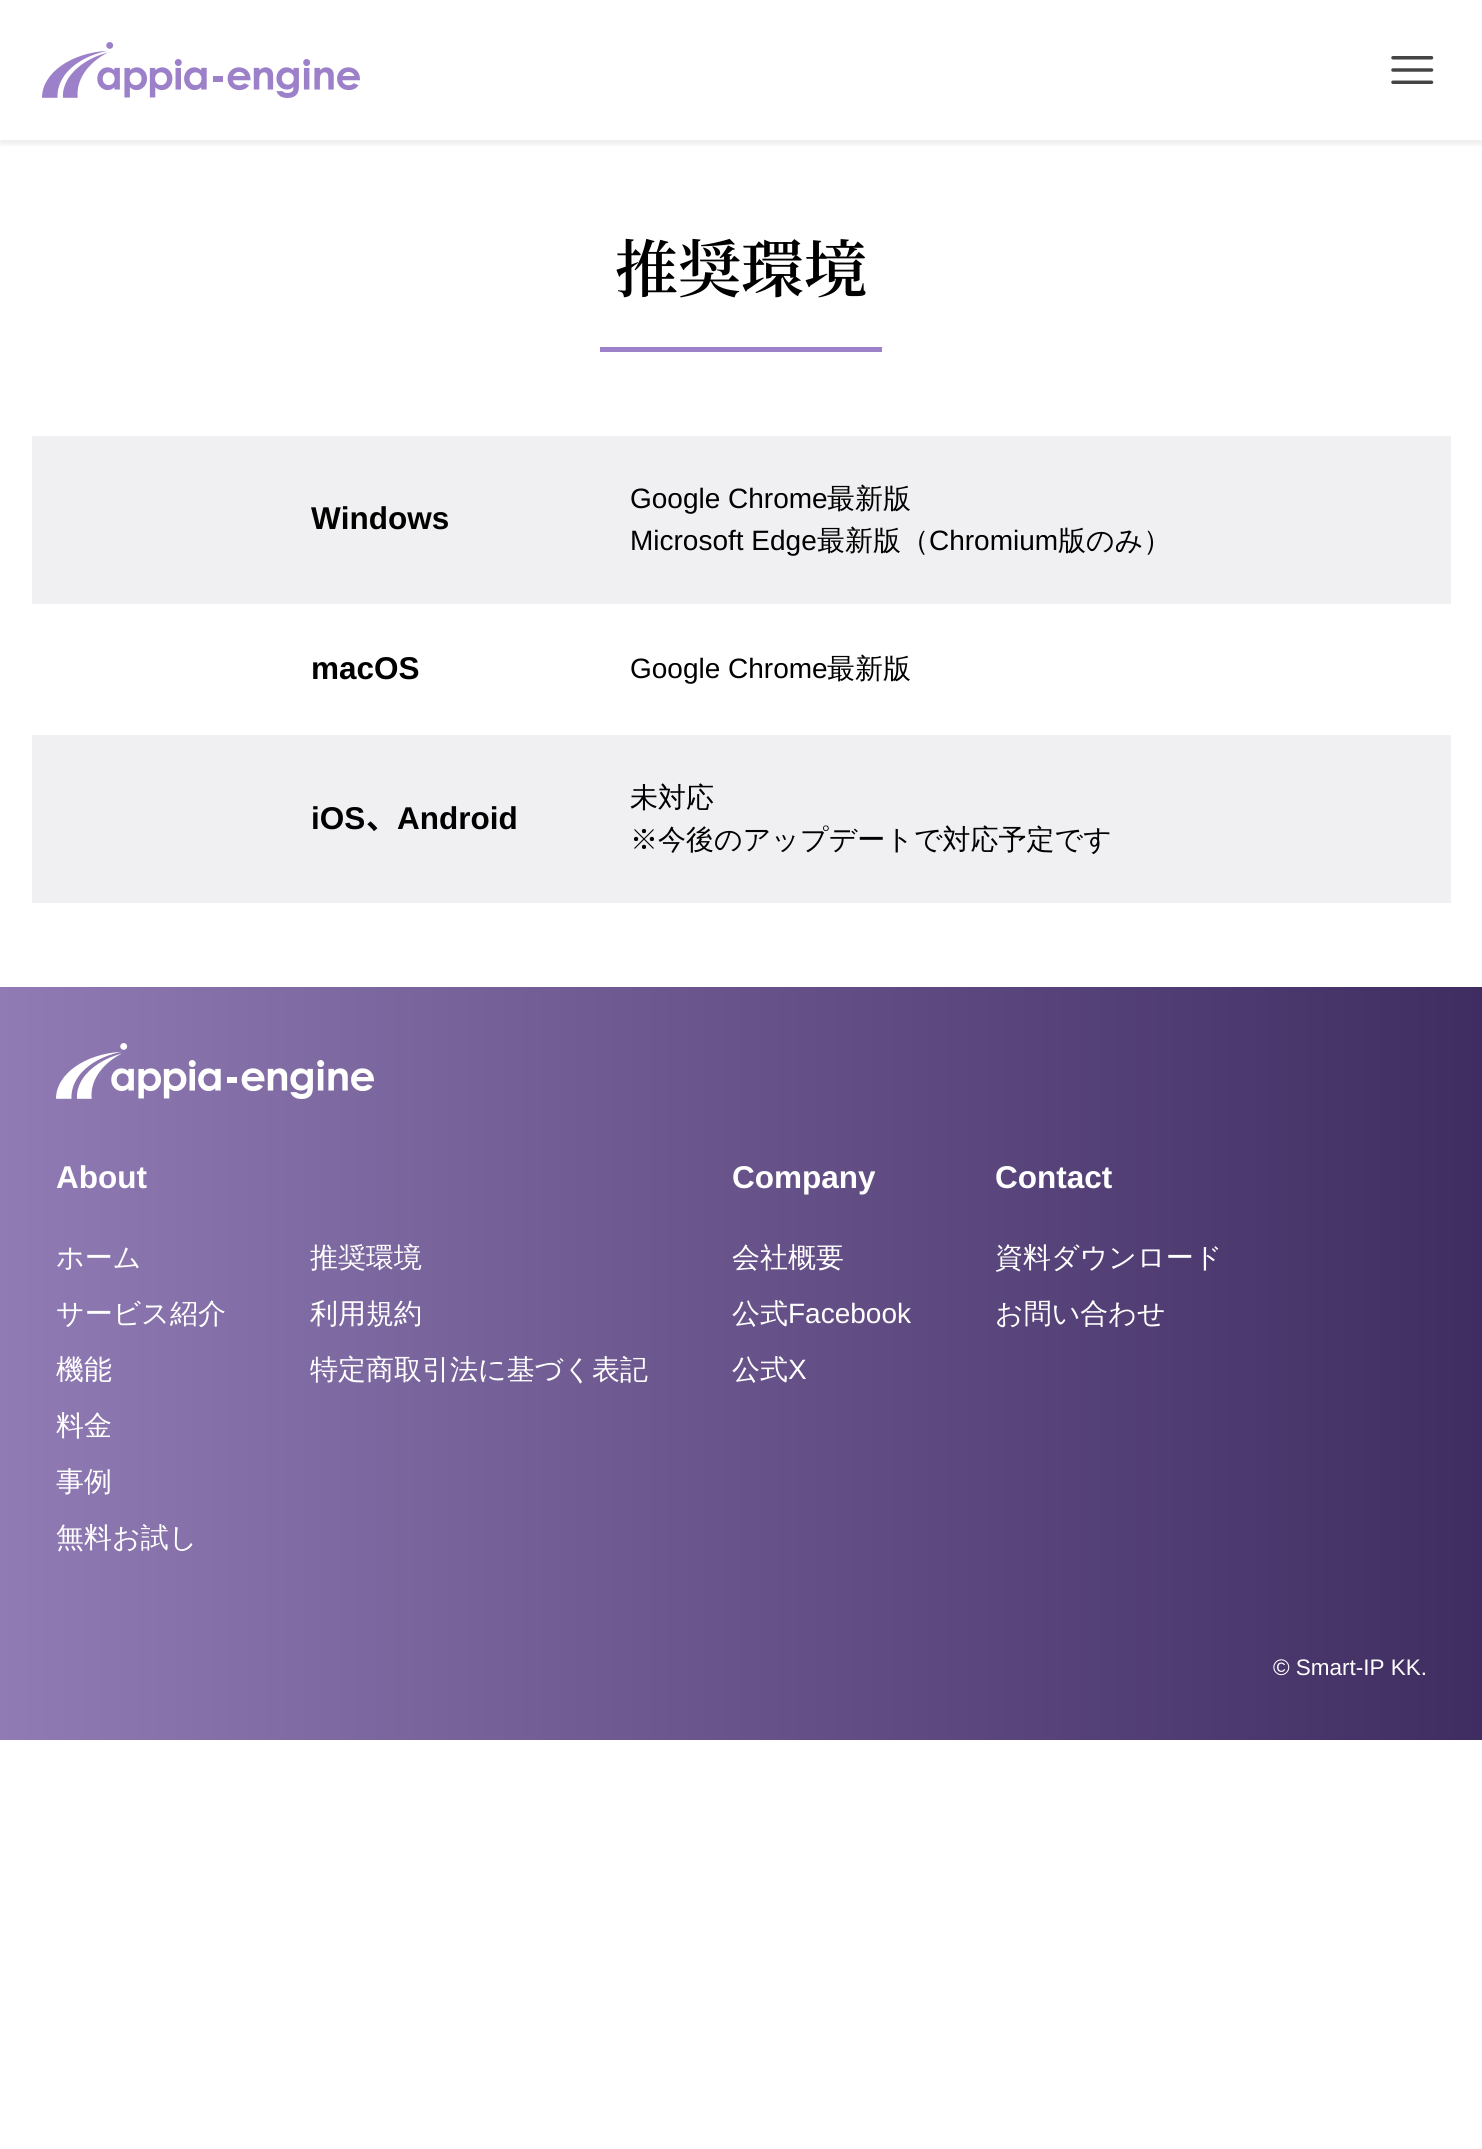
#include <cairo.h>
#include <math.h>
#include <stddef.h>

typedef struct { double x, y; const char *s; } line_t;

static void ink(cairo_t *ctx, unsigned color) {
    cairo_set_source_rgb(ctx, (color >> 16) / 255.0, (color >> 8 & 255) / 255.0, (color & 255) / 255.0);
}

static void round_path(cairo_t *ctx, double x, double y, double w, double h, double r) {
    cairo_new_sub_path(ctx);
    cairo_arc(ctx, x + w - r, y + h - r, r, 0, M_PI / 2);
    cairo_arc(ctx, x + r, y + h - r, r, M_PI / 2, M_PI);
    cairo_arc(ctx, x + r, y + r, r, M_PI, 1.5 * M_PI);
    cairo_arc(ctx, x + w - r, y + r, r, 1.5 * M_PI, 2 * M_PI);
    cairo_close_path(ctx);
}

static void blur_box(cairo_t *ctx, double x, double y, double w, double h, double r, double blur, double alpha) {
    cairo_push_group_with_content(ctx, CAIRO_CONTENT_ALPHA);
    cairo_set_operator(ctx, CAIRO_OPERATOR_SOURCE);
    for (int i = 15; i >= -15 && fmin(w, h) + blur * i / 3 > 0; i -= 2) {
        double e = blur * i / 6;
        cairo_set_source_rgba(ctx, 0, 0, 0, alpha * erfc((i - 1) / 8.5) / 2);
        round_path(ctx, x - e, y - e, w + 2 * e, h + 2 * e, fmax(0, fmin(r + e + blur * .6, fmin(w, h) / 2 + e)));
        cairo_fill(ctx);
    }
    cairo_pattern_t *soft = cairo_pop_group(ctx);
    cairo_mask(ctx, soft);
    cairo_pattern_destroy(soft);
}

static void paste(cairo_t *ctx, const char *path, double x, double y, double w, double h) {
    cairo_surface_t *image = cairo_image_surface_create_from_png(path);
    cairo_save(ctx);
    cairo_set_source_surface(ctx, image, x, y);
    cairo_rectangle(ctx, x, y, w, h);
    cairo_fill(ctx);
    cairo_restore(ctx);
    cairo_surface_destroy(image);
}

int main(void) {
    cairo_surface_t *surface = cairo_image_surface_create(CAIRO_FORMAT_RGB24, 1482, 2149);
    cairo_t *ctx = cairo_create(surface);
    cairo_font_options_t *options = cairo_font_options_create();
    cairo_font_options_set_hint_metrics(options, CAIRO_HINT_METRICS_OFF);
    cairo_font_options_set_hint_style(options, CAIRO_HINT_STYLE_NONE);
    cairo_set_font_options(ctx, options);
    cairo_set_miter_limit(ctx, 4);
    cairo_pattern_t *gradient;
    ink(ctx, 0xFFFFFF);
    cairo_paint(ctx);
    cairo_save(ctx);
    cairo_rectangle(ctx, 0, 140, 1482, 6);
    cairo_clip(ctx);
    ink(ctx, 0x000000);
    blur_box(ctx, 0, 4, 1482, 140, 0, 3.5, 0.08);
    cairo_restore(ctx);
    paste(ctx, "media/1.png", 42, 42, 318, 56);
    paste(ctx, "media/2.png", 1391, 56, 43, 28);
    ink(ctx, 0x9C80C9);
    cairo_rectangle(ctx, 600, 347, 282, 5);
    cairo_fill(ctx);
    cairo_select_font_face(ctx, "Noto Serif JP SemiBold", CAIRO_FONT_SLANT_NORMAL, CAIRO_FONT_WEIGHT_NORMAL);
    cairo_set_font_size(ctx, 63);
    ink(ctx, 0x000000);
    cairo_move_to(ctx, 615, 292);
    cairo_show_text(ctx, "推奨環境");
    ink(ctx, 0xF0F0F2);
    cairo_rectangle(ctx, 32, 436, 1419, 168);
    cairo_fill(ctx);
    cairo_select_font_face(ctx, "Liberation Sans", CAIRO_FONT_SLANT_NORMAL, CAIRO_FONT_WEIGHT_BOLD);
    cairo_set_font_size(ctx, 31.5);
    ink(ctx, 0x000000);
    cairo_move_to(ctx, 311, 529);
    cairo_show_text(ctx, "Windows");
    cairo_select_font_face(ctx, "Liberation Sans", CAIRO_FONT_SLANT_NORMAL, CAIRO_FONT_WEIGHT_NORMAL);
    cairo_set_font_size(ctx, 28);
    cairo_move_to(ctx, 630, 508);
    cairo_show_text(ctx, "Google Chrome");
    cairo_select_font_face(ctx, "WenQuanYi Zen Hei Medium", CAIRO_FONT_SLANT_NORMAL, CAIRO_FONT_WEIGHT_NORMAL);
    cairo_move_to(ctx, 827, 508);
    cairo_show_text(ctx, "最新版");
    cairo_select_font_face(ctx, "Liberation Sans", CAIRO_FONT_SLANT_NORMAL, CAIRO_FONT_WEIGHT_NORMAL);
    cairo_move_to(ctx, 630, 550);
    cairo_show_text(ctx, "Microsoft Edge");
    cairo_select_font_face(ctx, "WenQuanYi Zen Hei Medium", CAIRO_FONT_SLANT_NORMAL, CAIRO_FONT_WEIGHT_NORMAL);
    cairo_move_to(ctx, 817, 550);
    cairo_show_text(ctx, "最新版（");
    cairo_select_font_face(ctx, "Liberation Sans", CAIRO_FONT_SLANT_NORMAL, CAIRO_FONT_WEIGHT_NORMAL);
    cairo_move_to(ctx, 929, 550);
    cairo_show_text(ctx, "Chromium");
    cairo_select_font_face(ctx, "WenQuanYi Zen Hei Medium", CAIRO_FONT_SLANT_NORMAL, CAIRO_FONT_WEIGHT_NORMAL);
    cairo_move_to(ctx, 1058, 550);
    cairo_show_text(ctx, "版のみ）");
    cairo_select_font_face(ctx, "Liberation Sans", CAIRO_FONT_SLANT_NORMAL, CAIRO_FONT_WEIGHT_BOLD);
    cairo_set_font_size(ctx, 31.5);
    cairo_move_to(ctx, 311, 679);
    cairo_show_text(ctx, "macOS");
    cairo_select_font_face(ctx, "Liberation Sans", CAIRO_FONT_SLANT_NORMAL, CAIRO_FONT_WEIGHT_NORMAL);
    cairo_set_font_size(ctx, 28);
    cairo_move_to(ctx, 630, 678);
    cairo_show_text(ctx, "Google Chrome");
    cairo_select_font_face(ctx, "WenQuanYi Zen Hei Medium", CAIRO_FONT_SLANT_NORMAL, CAIRO_FONT_WEIGHT_NORMAL);
    cairo_move_to(ctx, 827, 678);
    cairo_show_text(ctx, "最新版");
    ink(ctx, 0xF0F0F2);
    cairo_rectangle(ctx, 32, 735, 1419, 168);
    cairo_fill(ctx);
    cairo_select_font_face(ctx, "Liberation Sans", CAIRO_FONT_SLANT_NORMAL, CAIRO_FONT_WEIGHT_BOLD);
    cairo_set_font_size(ctx, 31.5);
    ink(ctx, 0x000000);
    cairo_move_to(ctx, 311, 829);
    cairo_show_text(ctx, "iOS");
    cairo_select_font_face(ctx, "Noto Sans JP", CAIRO_FONT_SLANT_NORMAL, CAIRO_FONT_WEIGHT_BOLD);
    cairo_move_to(ctx, 366, 829);
    cairo_show_text(ctx, "、");
    cairo_select_font_face(ctx, "Liberation Sans", CAIRO_FONT_SLANT_NORMAL, CAIRO_FONT_WEIGHT_BOLD);
    cairo_move_to(ctx, 397, 829);
    cairo_show_text(ctx, "Android");
    cairo_select_font_face(ctx, "WenQuanYi Zen Hei Medium", CAIRO_FONT_SLANT_NORMAL, CAIRO_FONT_WEIGHT_NORMAL);
    cairo_set_font_size(ctx, 28);
    cairo_move_to(ctx, 630, 807);
    cairo_show_text(ctx, "未対応");
    cairo_move_to(ctx, 630, 849);
    cairo_show_text(ctx, "※今後のアップデートで対応予定です");
    gradient = cairo_pattern_create_linear(0, 1363, 1482, 1363);
    cairo_pattern_add_color_stop_rgba(gradient, 0, 0.565, 0.482, 0.706, 1);
    cairo_pattern_add_color_stop_rgba(gradient, 1, 0.247, 0.173, 0.38, 1);
    cairo_set_source(ctx, gradient);
    cairo_pattern_destroy(gradient);
    cairo_rectangle(ctx, 0, 987, 1482, 753);
    cairo_fill(ctx);
    paste(ctx, "media/3.png", 56, 1043, 318, 56);
    cairo_select_font_face(ctx, "Liberation Sans", CAIRO_FONT_SLANT_NORMAL, CAIRO_FONT_WEIGHT_BOLD);
    cairo_set_font_size(ctx, 31.5);
    ink(ctx, 0xFFFFFF);
    cairo_move_to(ctx, 56, 1188);
    cairo_show_text(ctx, "About");
    cairo_select_font_face(ctx, "WenQuanYi Zen Hei Medium", CAIRO_FONT_SLANT_NORMAL, CAIRO_FONT_WEIGHT_NORMAL);
    cairo_set_font_size(ctx, 28);
    {
        static const line_t items[] = {
            {56, 1267, "ホーム"},
            {56, 1323, "サービス紹介"},
            {56, 1379, "機能"},
            {56, 1435, "料金"},
            {56, 1491, "事例"},
            {56, 1547, "無料お試し"},
            {310, 1267, "推奨環境"},
            {310, 1323, "利用規約"},
            {310, 1379, "特定商取引法に基づく表記"},
        };
        for (size_t i = 0; i < sizeof items / sizeof *items; i++) {
            cairo_move_to(ctx, items[i].x, items[i].y);
            cairo_show_text(ctx, items[i].s);
        }
    }
    cairo_select_font_face(ctx, "Liberation Sans", CAIRO_FONT_SLANT_NORMAL, CAIRO_FONT_WEIGHT_BOLD);
    cairo_set_font_size(ctx, 31.5);
    cairo_move_to(ctx, 732, 1188);
    cairo_show_text(ctx, "Company");
    cairo_select_font_face(ctx, "WenQuanYi Zen Hei Medium", CAIRO_FONT_SLANT_NORMAL, CAIRO_FONT_WEIGHT_NORMAL);
    cairo_set_font_size(ctx, 28);
    cairo_move_to(ctx, 732, 1267);
    cairo_show_text(ctx, "会社概要");
    cairo_move_to(ctx, 732, 1323);
    cairo_show_text(ctx, "公式");
    cairo_select_font_face(ctx, "Liberation Sans", CAIRO_FONT_SLANT_NORMAL, CAIRO_FONT_WEIGHT_NORMAL);
    cairo_move_to(ctx, 788, 1323);
    cairo_show_text(ctx, "Facebook");
    cairo_select_font_face(ctx, "WenQuanYi Zen Hei Medium", CAIRO_FONT_SLANT_NORMAL, CAIRO_FONT_WEIGHT_NORMAL);
    cairo_move_to(ctx, 732, 1379);
    cairo_show_text(ctx, "公式");
    cairo_select_font_face(ctx, "Liberation Sans", CAIRO_FONT_SLANT_NORMAL, CAIRO_FONT_WEIGHT_NORMAL);
    cairo_move_to(ctx, 788, 1379);
    cairo_show_text(ctx, "X");
    cairo_select_font_face(ctx, "Liberation Sans", CAIRO_FONT_SLANT_NORMAL, CAIRO_FONT_WEIGHT_BOLD);
    cairo_set_font_size(ctx, 31.5);
    cairo_move_to(ctx, 995, 1188);
    cairo_show_text(ctx, "Contact");
    cairo_select_font_face(ctx, "WenQuanYi Zen Hei Medium", CAIRO_FONT_SLANT_NORMAL, CAIRO_FONT_WEIGHT_NORMAL);
    cairo_set_font_size(ctx, 28);
    cairo_move_to(ctx, 995, 1267);
    cairo_show_text(ctx, "資料ダウンロード");
    cairo_move_to(ctx, 995, 1323);
    cairo_show_text(ctx, "お問い合わせ");
    cairo_select_font_face(ctx, "Liberation Sans", CAIRO_FONT_SLANT_NORMAL, CAIRO_FONT_WEIGHT_NORMAL);
    cairo_set_font_size(ctx, 22.5);
    cairo_move_to(ctx, 1273, 1675);
    cairo_show_text(ctx, "© Smart-IP KK.");
    cairo_surface_write_to_png(surface, "image.png");
    cairo_font_options_destroy(options);
    cairo_destroy(ctx);
    cairo_surface_destroy(surface);
    return 0;
}
